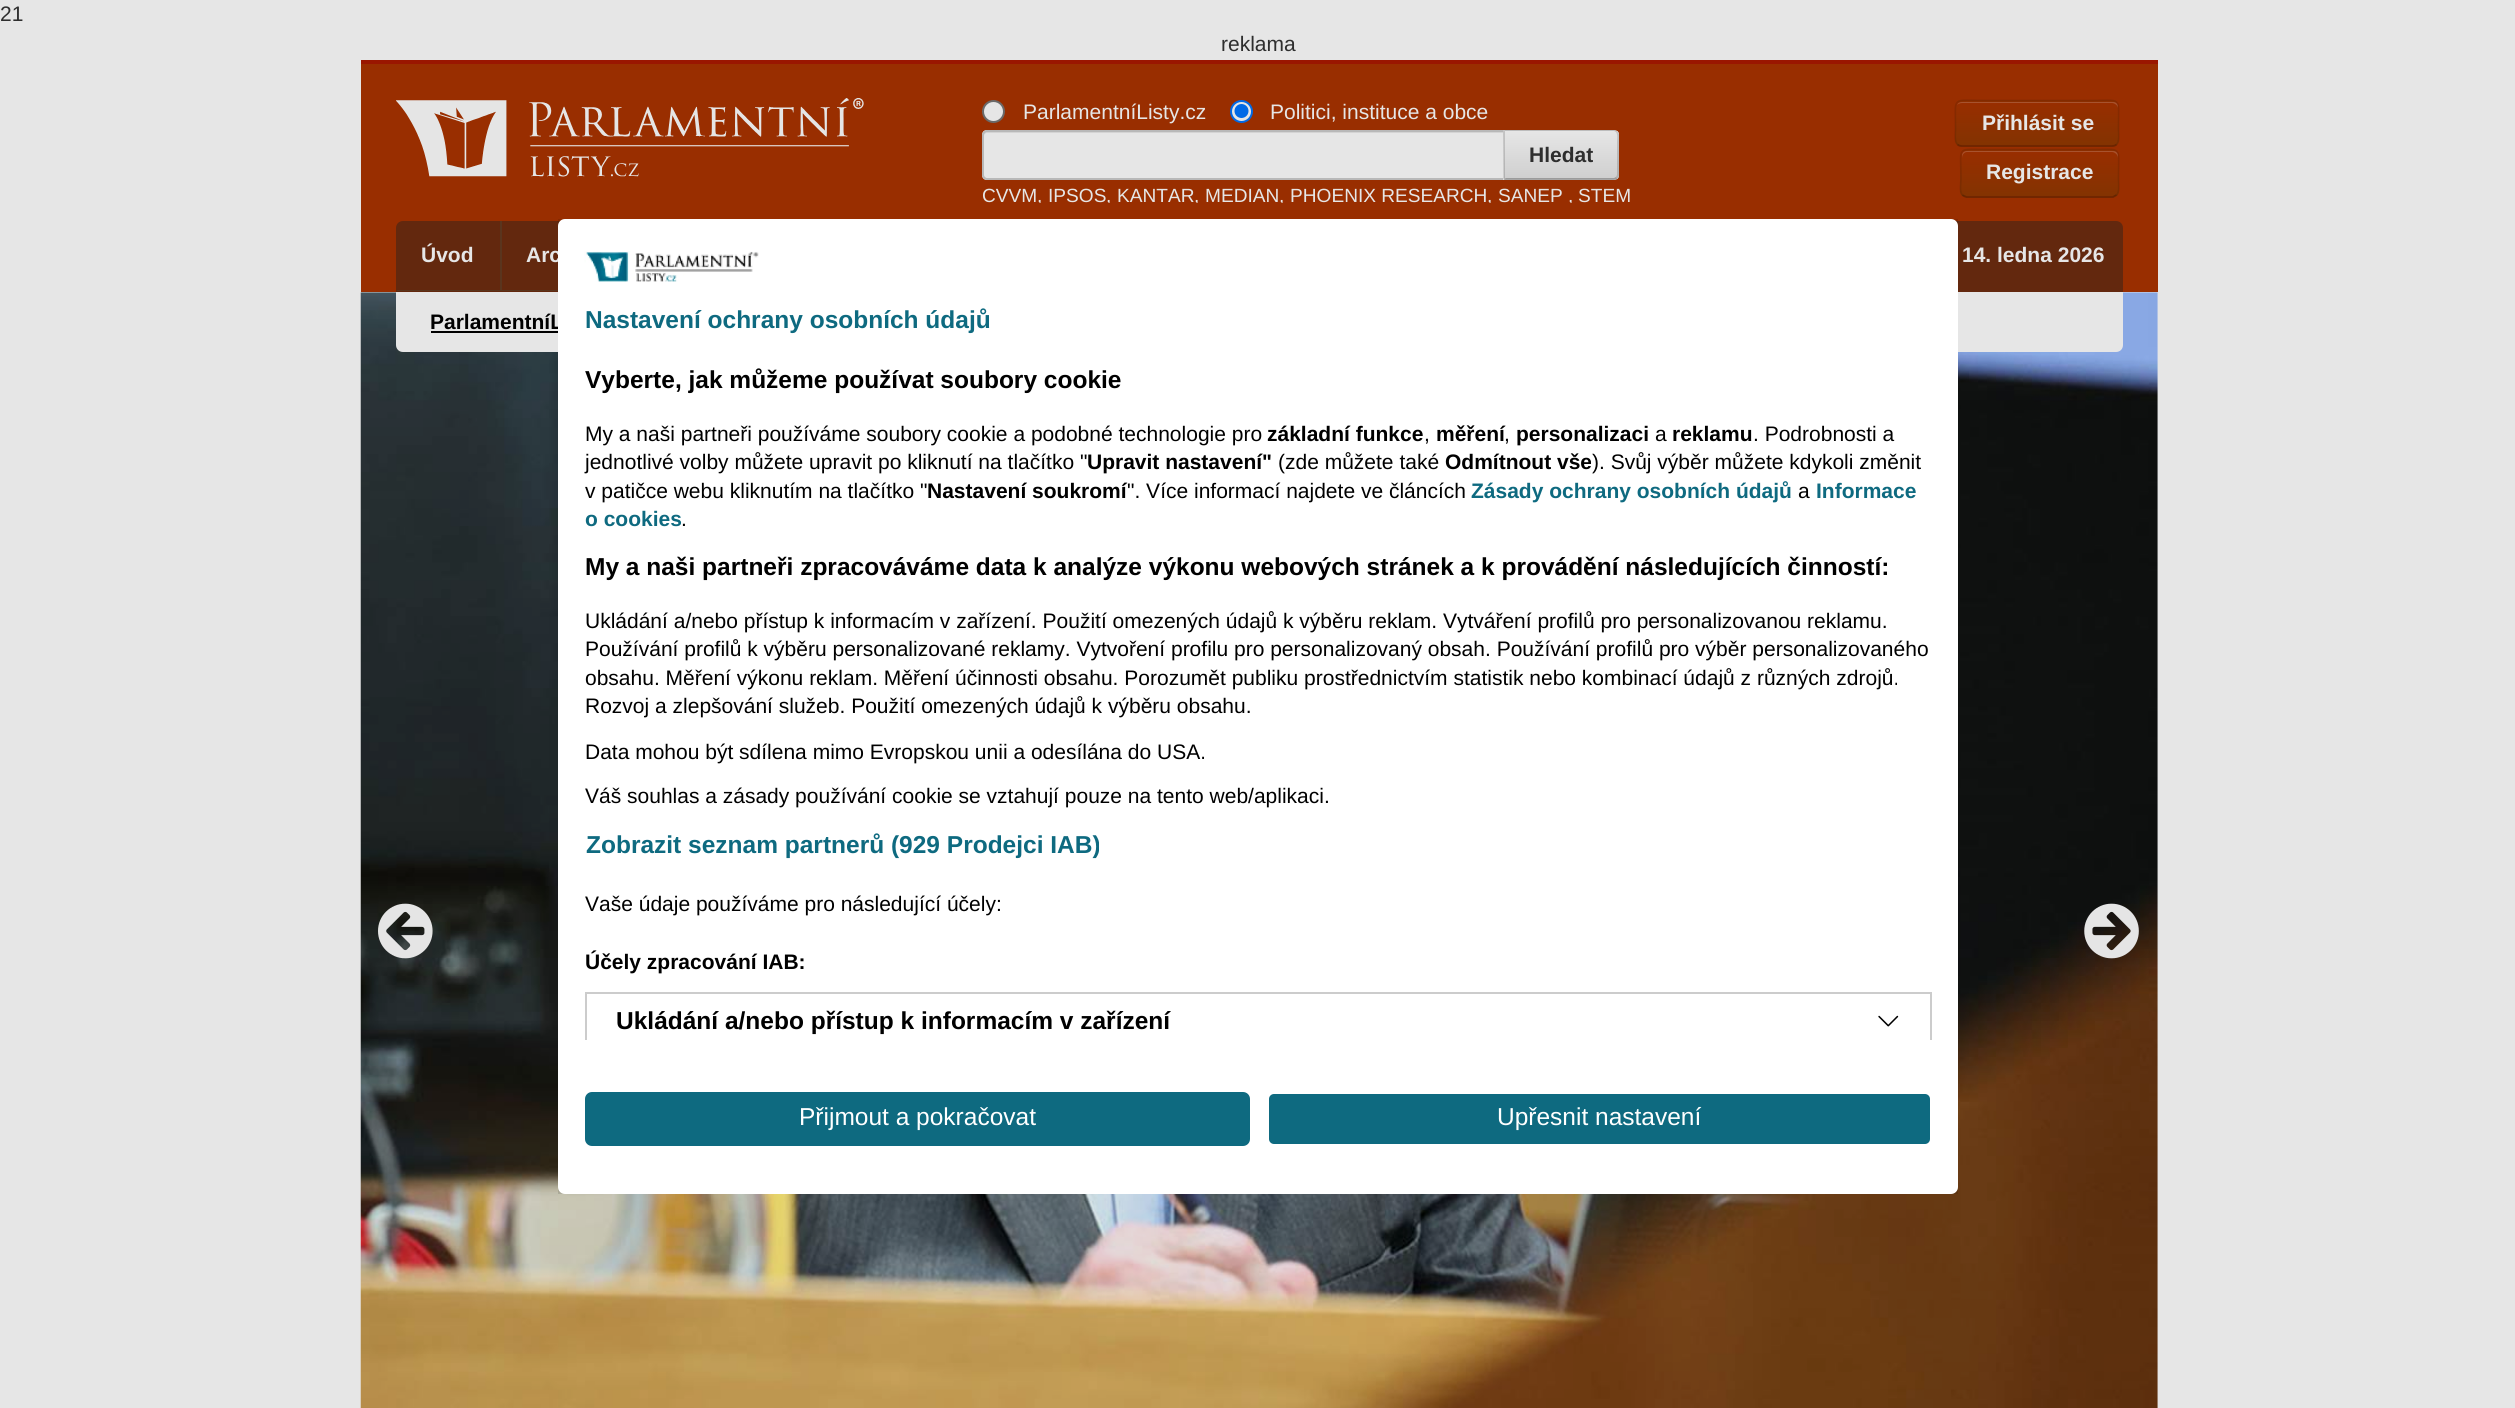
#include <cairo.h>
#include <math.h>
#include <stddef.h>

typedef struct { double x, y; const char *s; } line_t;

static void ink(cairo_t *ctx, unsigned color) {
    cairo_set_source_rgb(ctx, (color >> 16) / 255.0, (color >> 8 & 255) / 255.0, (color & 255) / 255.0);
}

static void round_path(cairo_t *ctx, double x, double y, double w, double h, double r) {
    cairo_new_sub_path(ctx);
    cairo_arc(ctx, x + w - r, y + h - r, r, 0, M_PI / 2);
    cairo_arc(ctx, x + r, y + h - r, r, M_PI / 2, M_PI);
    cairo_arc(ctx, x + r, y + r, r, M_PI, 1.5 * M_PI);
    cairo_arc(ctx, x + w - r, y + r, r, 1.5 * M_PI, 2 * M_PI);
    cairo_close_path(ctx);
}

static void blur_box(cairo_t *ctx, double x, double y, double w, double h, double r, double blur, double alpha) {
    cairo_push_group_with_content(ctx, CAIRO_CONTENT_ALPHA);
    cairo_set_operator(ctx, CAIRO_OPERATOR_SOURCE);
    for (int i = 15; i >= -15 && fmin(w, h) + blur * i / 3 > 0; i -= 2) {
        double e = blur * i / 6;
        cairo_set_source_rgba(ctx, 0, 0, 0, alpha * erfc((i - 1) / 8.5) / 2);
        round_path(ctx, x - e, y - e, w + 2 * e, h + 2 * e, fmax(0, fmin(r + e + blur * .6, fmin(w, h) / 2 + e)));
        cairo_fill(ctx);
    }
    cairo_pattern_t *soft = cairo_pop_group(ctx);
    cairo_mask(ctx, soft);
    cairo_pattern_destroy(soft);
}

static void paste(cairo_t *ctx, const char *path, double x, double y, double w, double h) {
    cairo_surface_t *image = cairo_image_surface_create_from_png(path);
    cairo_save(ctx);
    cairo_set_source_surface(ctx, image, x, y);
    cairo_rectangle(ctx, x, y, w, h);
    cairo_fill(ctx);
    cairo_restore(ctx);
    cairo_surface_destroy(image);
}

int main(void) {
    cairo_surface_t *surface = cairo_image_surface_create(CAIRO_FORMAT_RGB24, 2515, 1408);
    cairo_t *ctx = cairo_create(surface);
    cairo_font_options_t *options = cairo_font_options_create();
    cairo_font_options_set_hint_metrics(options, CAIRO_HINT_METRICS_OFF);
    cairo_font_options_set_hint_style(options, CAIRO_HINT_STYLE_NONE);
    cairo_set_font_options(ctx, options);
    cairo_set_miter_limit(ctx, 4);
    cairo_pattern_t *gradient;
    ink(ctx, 0xE6E6E6);
    cairo_paint(ctx);
    cairo_select_font_face(ctx, "Liberation Sans", CAIRO_FONT_SLANT_NORMAL, CAIRO_FONT_WEIGHT_NORMAL);
    cairo_set_font_size(ctx, 21);
    ink(ctx, 0x2E2E2E);
    cairo_move_to(ctx, 0, 21);
    cairo_show_text(ctx, "21");
    cairo_move_to(ctx, 1221, 51);
    cairo_show_text(ctx, "reklama");
    ink(ctx, 0x992E00);
    cairo_rectangle(ctx, 361, 64, 1797, 228);
    cairo_fill(ctx);
    ink(ctx, 0x9A1600);
    cairo_rectangle(ctx, 361, 60, 1797, 4);
    cairo_fill(ctx);
    paste(ctx, "media/1.png", 396, 98, 468, 79);
    ink(ctx, 0xE6E6E6);
    cairo_arc(ctx, 993.5, 111.5, 10.5, 0, 2 * M_PI);
    cairo_fill_preserve(ctx);
    ink(ctx, 0x6A6A6A);
    cairo_stroke(ctx);
    ink(ctx, 0xE6E6E6);
    cairo_move_to(ctx, 1023, 119);
    cairo_show_text(ctx, "ParlamentníListy.cz");
    cairo_new_path(ctx);
    cairo_arc(ctx, 1241.5, 111.5, 10.5, 0, 2 * M_PI);
    cairo_fill_preserve(ctx);
    ink(ctx, 0x0069E6);
    cairo_stroke(ctx);
    cairo_arc(ctx, 1241.5, 111, 7, 0, 2 * M_PI);
    cairo_fill(ctx);
    ink(ctx, 0xE6E6E6);
    cairo_move_to(ctx, 1270, 119);
    cairo_show_text(ctx, "Politici, instituce a obce");
    cairo_new_path(ctx);
    cairo_move_to(ctx, 987, 130);
    cairo_line_to(ctx, 1507, 130);
    cairo_line_to(ctx, 1507, 180);
    cairo_line_to(ctx, 987, 180);
    cairo_curve_to(ctx, 984, 180, 982, 178, 982, 175);
    cairo_line_to(ctx, 982, 135);
    cairo_curve_to(ctx, 982, 132, 984, 130, 987, 130);
    cairo_close_path(ctx);
    cairo_fill(ctx);
    ink(ctx, 0xD4D4D4);
    cairo_new_path(ctx);
    cairo_move_to(ctx, 987, 133);
    cairo_line_to(ctx, 1505, 133);
    cairo_line_to(ctx, 1505, 131);
    cairo_line_to(ctx, 988, 131);
    cairo_curve_to(ctx, 985, 131, 984, 133, 984, 136);
    cairo_curve_to(ctx, 984, 135, 985, 133, 987, 133);
    cairo_close_path(ctx);
    cairo_fill(ctx);
    cairo_new_path(ctx);
    cairo_move_to(ctx, 987, 131);
    cairo_line_to(ctx, 1506, 131);
    cairo_line_to(ctx, 1506, 179);
    cairo_line_to(ctx, 987, 179);
    cairo_curve_to(ctx, 985, 179, 983, 177, 983, 175);
    cairo_line_to(ctx, 983, 135);
    cairo_curve_to(ctx, 983, 133, 985, 131, 987, 131);
    cairo_close_path(ctx);
    ink(ctx, 0xB8B8B8);
    cairo_stroke(ctx);
    ink(ctx, 0xDDDDDD);
    cairo_new_path(ctx);
    cairo_move_to(ctx, 1503, 130);
    cairo_line_to(ctx, 1614, 130);
    cairo_curve_to(ctx, 1617, 130, 1619, 132, 1619, 135);
    cairo_line_to(ctx, 1619, 175);
    cairo_curve_to(ctx, 1619, 178, 1617, 180, 1614, 180);
    cairo_line_to(ctx, 1503, 180);
    cairo_close_path(ctx);
    cairo_fill(ctx);
    cairo_save(ctx);
    cairo_new_path(ctx);
    cairo_move_to(ctx, 1503, 130);
    cairo_line_to(ctx, 1614, 130);
    cairo_curve_to(ctx, 1617, 130, 1619, 132, 1619, 135);
    cairo_line_to(ctx, 1619, 175);
    cairo_curve_to(ctx, 1619, 178, 1617, 180, 1614, 180);
    cairo_line_to(ctx, 1503, 180);
    cairo_close_path(ctx);
    cairo_clip(ctx);
    gradient = cairo_pattern_create_linear(1561, 131, 1561, 179);
    cairo_pattern_add_color_stop_rgba(gradient, 0, 0.902, 0.902, 0.902, 1);
    cairo_pattern_add_color_stop_rgba(gradient, 1, 0.812, 0.812, 0.812, 1);
    cairo_set_source(ctx, gradient);
    cairo_pattern_destroy(gradient);
    cairo_rectangle(ctx, 1503, 131, 116, 48);
    cairo_fill(ctx);
    cairo_restore(ctx);
    cairo_set_source_rgba(ctx, 0, 0, 0, 0.15);
    cairo_new_path(ctx);
    cairo_move_to(ctx, 1505, 131);
    cairo_line_to(ctx, 1614, 131);
    cairo_line_to(ctx, 1616, 132);
    cairo_line_to(ctx, 1617, 131);
    cairo_line_to(ctx, 1614, 130);
    cairo_line_to(ctx, 1504, 130);
    cairo_close_path(ctx);
    cairo_fill(ctx);
    cairo_new_path(ctx);
    cairo_move_to(ctx, 1617, 131);
    cairo_line_to(ctx, 1619, 134);
    cairo_line_to(ctx, 1619, 176);
    cairo_line_to(ctx, 1617, 179);
    cairo_line_to(ctx, 1616, 177);
    cairo_line_to(ctx, 1617, 175);
    cairo_line_to(ctx, 1617, 142);
    cairo_curve_to(ctx, 1617, 139, 1618, 135, 1616, 132);
    cairo_close_path(ctx);
    cairo_fill(ctx);
    cairo_set_source_rgba(ctx, 0, 0, 0, 0.25);
    cairo_new_path(ctx);
    cairo_move_to(ctx, 1617, 179);
    cairo_line_to(ctx, 1614, 180);
    cairo_line_to(ctx, 1504, 180);
    cairo_line_to(ctx, 1506, 178);
    cairo_line_to(ctx, 1614, 178);
    cairo_line_to(ctx, 1616, 177);
    cairo_close_path(ctx);
    cairo_fill(ctx);
    cairo_set_source_rgba(ctx, 0, 0, 0, 0.15);
    cairo_new_path(ctx);
    cairo_move_to(ctx, 1503, 130);
    cairo_line_to(ctx, 1505, 131);
    cairo_line_to(ctx, 1505, 178);
    cairo_line_to(ctx, 1506, 178);
    cairo_line_to(ctx, 1504, 180);
    cairo_close_path(ctx);
    cairo_fill(ctx);
    cairo_select_font_face(ctx, "Liberation Sans", CAIRO_FONT_SLANT_NORMAL, CAIRO_FONT_WEIGHT_BOLD);
    ink(ctx, 0x2E2E2E);
    cairo_move_to(ctx, 1529, 162);
    cairo_show_text(ctx, "Hledat");
    cairo_select_font_face(ctx, "Liberation Sans", CAIRO_FONT_SLANT_NORMAL, CAIRO_FONT_WEIGHT_NORMAL);
    cairo_set_font_size(ctx, 19.1);
    ink(ctx, 0xE6E6E6);
    cairo_move_to(ctx, 982, 202);
    cairo_show_text(ctx, "CVVM");
    cairo_save(ctx);
    cairo_rectangle(ctx, 982, 182, 649, 21);
    cairo_clip(ctx);
    cairo_move_to(ctx, 1037, 202);
    cairo_show_text(ctx, ",");
    cairo_restore(ctx);
    cairo_move_to(ctx, 1048, 202);
    cairo_show_text(ctx, "IPSOS");
    cairo_save(ctx);
    cairo_rectangle(ctx, 982, 182, 649, 21);
    cairo_clip(ctx);
    cairo_move_to(ctx, 1106, 202);
    cairo_show_text(ctx, ",");
    cairo_restore(ctx);
    cairo_move_to(ctx, 1117, 202);
    cairo_show_text(ctx, "KANTAR");
    cairo_save(ctx);
    cairo_rectangle(ctx, 982, 182, 649, 21);
    cairo_clip(ctx);
    cairo_move_to(ctx, 1194, 202);
    cairo_show_text(ctx, ",");
    cairo_restore(ctx);
    cairo_move_to(ctx, 1205, 202);
    cairo_show_text(ctx, "MEDIAN");
    cairo_save(ctx);
    cairo_rectangle(ctx, 982, 182, 649, 21);
    cairo_clip(ctx);
    cairo_move_to(ctx, 1279, 202);
    cairo_show_text(ctx, ",");
    cairo_restore(ctx);
    cairo_move_to(ctx, 1290, 202);
    cairo_show_text(ctx, "PHOENIX RESEARCH");
    cairo_save(ctx);
    cairo_rectangle(ctx, 982, 182, 649, 21);
    cairo_clip(ctx);
    cairo_move_to(ctx, 1487, 202);
    cairo_show_text(ctx, ",");
    cairo_restore(ctx);
    cairo_move_to(ctx, 1498, 202);
    cairo_show_text(ctx, "SANEP");
    cairo_save(ctx);
    cairo_rectangle(ctx, 982, 182, 649, 21);
    cairo_clip(ctx);
    cairo_move_to(ctx, 1568, 202);
    cairo_show_text(ctx, ",");
    cairo_restore(ctx);
    cairo_move_to(ctx, 1578, 202);
    cairo_show_text(ctx, "STEM");
    ink(ctx, 0x903000);
    round_path(ctx, 1955, 100, 164, 47, 7);
    cairo_fill(ctx);
    cairo_save(ctx);
    round_path(ctx, 1955, 100, 164, 47, 7);
    cairo_clip(ctx);
    gradient = cairo_pattern_create_linear(2037, 101, 2037, 145);
    cairo_pattern_add_color_stop_rgba(gradient, 0, 0.6, 0.18, 0, 1);
    cairo_pattern_add_color_stop_rgba(gradient, 1, 0.514, 0.2, 0.004, 1);
    cairo_set_source(ctx, gradient);
    cairo_pattern_destroy(gradient);
    cairo_rectangle(ctx, 1955, 102, 164, 43);
    cairo_fill(ctx);
    cairo_restore(ctx);
    ink(ctx, 0xA7532E);
    cairo_new_path(ctx);
    cairo_move_to(ctx, 1962, 103);
    cairo_line_to(ctx, 2112, 103);
    cairo_curve_to(ctx, 2115, 103, 2118, 106, 2118, 108);
    cairo_line_to(ctx, 2118, 107);
    cairo_curve_to(ctx, 2118, 104, 2116, 102, 2113, 102);
    cairo_line_to(ctx, 1962, 102);
    cairo_curve_to(ctx, 1960, 102, 1958, 103, 1957, 105);
    cairo_curve_to(ctx, 1958, 104, 1960, 103, 1962, 103);
    cairo_close_path(ctx);
    cairo_fill(ctx);
    cairo_new_path(ctx);
    cairo_move_to(ctx, 2116.5, 144.5);
    cairo_curve_to(ctx, 2115.5, 145.5, 2114, 146, 2112, 146);
    cairo_line_to(ctx, 1962, 146);
    cairo_curve_to(ctx, 1960, 146, 1958.5, 145.5, 1957.5, 144.5);
    cairo_set_source_rgba(ctx, 0, 0, 0, 0.25);
    cairo_set_line_width(ctx, 1.8);
    cairo_stroke(ctx);
    cairo_new_path(ctx);
    cairo_move_to(ctx, 1957.5, 144.5);
    cairo_curve_to(ctx, 1954, 141, 1955.5, 133, 1955.5, 129);
    cairo_curve_to(ctx, 1955.5, 95, 1950.5, 100.5, 1987, 100.5);
    cairo_line_to(ctx, 2087, 100.5);
    cairo_curve_to(ctx, 2123.5, 100.5, 2118.5, 95, 2118.5, 129);
    cairo_curve_to(ctx, 2118.5, 133, 2120, 141, 2116.5, 144.5);
    cairo_set_source_rgba(ctx, 0, 0, 0, 0.1);
    cairo_stroke(ctx);
    cairo_select_font_face(ctx, "Liberation Sans", CAIRO_FONT_SLANT_NORMAL, CAIRO_FONT_WEIGHT_BOLD);
    cairo_set_font_size(ctx, 21);
    ink(ctx, 0xE6E6E6);
    cairo_move_to(ctx, 1982, 130);
    cairo_show_text(ctx, "Přihlásit se");
    ink(ctx, 0x903000);
    round_path(ctx, 1960, 149, 159, 49, 7);
    cairo_fill(ctx);
    cairo_save(ctx);
    round_path(ctx, 1960, 149, 159, 49, 7);
    cairo_clip(ctx);
    gradient = cairo_pattern_create_linear(2040, 151, 2040, 196);
    cairo_pattern_add_color_stop_rgba(gradient, 0, 0.6, 0.18, 0, 1);
    cairo_pattern_add_color_stop_rgba(gradient, 1, 0.514, 0.2, 0.004, 1);
    cairo_set_source(ctx, gradient);
    cairo_pattern_destroy(gradient);
    cairo_rectangle(ctx, 1960, 151, 159, 45);
    cairo_fill(ctx);
    cairo_restore(ctx);
    ink(ctx, 0xA8532E);
    cairo_new_path(ctx);
    cairo_move_to(ctx, 1967, 152);
    cairo_line_to(ctx, 2112, 152);
    cairo_curve_to(ctx, 2115, 152, 2118, 155, 2118, 158);
    cairo_line_to(ctx, 2118, 156);
    cairo_curve_to(ctx, 2118, 153, 2116, 151, 2113, 151);
    cairo_line_to(ctx, 1967, 151);
    cairo_curve_to(ctx, 1964, 151, 1962, 153, 1962, 156);
    cairo_line_to(ctx, 1962, 158);
    cairo_curve_to(ctx, 1962, 155, 1964, 152, 1967, 152);
    cairo_close_path(ctx);
    cairo_fill(ctx);
    cairo_new_path(ctx);
    cairo_move_to(ctx, 2116.5, 195);
    cairo_line_to(ctx, 2113, 197);
    cairo_line_to(ctx, 1966.5, 197);
    cairo_curve_to(ctx, 1965, 196.5, 1963.5, 196, 1962.5, 195);
    cairo_set_source_rgba(ctx, 0, 0, 0, 0.25);
    cairo_stroke(ctx);
    cairo_new_path(ctx);
    cairo_move_to(ctx, 1962.5, 195);
    cairo_curve_to(ctx, 1959, 191.5, 1961, 183, 1961, 179);
    cairo_curve_to(ctx, 1961, 144.5, 1955, 149.5, 1991, 149.5);
    cairo_line_to(ctx, 2088, 149.5);
    cairo_curve_to(ctx, 2124, 149.5, 2118.5, 144.5, 2118.5, 179);
    cairo_curve_to(ctx, 2118.5, 183, 2120, 191.5, 2116.5, 195);
    cairo_set_source_rgba(ctx, 0, 0, 0, 0.1);
    cairo_stroke(ctx);
    ink(ctx, 0xE6E6E6);
    cairo_move_to(ctx, 1986, 179);
    cairo_show_text(ctx, "Registrace");
    ink(ctx, 0x63280E);
    cairo_new_path(ctx);
    cairo_move_to(ctx, 403, 221);
    cairo_line_to(ctx, 2116, 221);
    cairo_curve_to(ctx, 2120, 221, 2123, 224, 2123, 228);
    cairo_line_to(ctx, 2123, 292);
    cairo_line_to(ctx, 396, 292);
    cairo_line_to(ctx, 396, 228);
    cairo_curve_to(ctx, 396, 224, 399, 221, 403, 221);
    cairo_close_path(ctx);
    cairo_fill(ctx);
    ink(ctx, 0x5A351E);
    cairo_new_path(ctx);
    cairo_move_to(ctx, 397, 290);
    cairo_line_to(ctx, 397, 291);
    cairo_line_to(ctx, 502, 291);
    cairo_line_to(ctx, 502, 221);
    cairo_line_to(ctx, 500, 221);
    cairo_line_to(ctx, 500, 290);
    cairo_close_path(ctx);
    cairo_fill(ctx);
    ink(ctx, 0xE6E6E6);
    cairo_move_to(ctx, 421, 262);
    cairo_show_text(ctx, "Úvod");
    ink(ctx, 0x5A351E);
    cairo_new_path(ctx);
    cairo_move_to(ctx, 502, 290);
    cairo_line_to(ctx, 502, 291);
    cairo_line_to(ctx, 620, 291);
    cairo_line_to(ctx, 620, 221);
    cairo_line_to(ctx, 618, 221);
    cairo_line_to(ctx, 618, 290);
    cairo_close_path(ctx);
    cairo_fill(ctx);
    ink(ctx, 0xE6E6E6);
    cairo_move_to(ctx, 526, 262);
    cairo_show_text(ctx, "Arc");
    cairo_move_to(ctx, 1962, 262);
    cairo_show_text(ctx, "14. ledna 2026");
    paste(ctx, "media/2.png", 360, 292, 1798, 1116);
    paste(ctx, "media/3.png", 378, 903, 55, 56);
    paste(ctx, "media/4.png", 2084, 903, 55, 56);
    cairo_new_path(ctx);
    cairo_move_to(ctx, 396, 292);
    cairo_line_to(ctx, 2123, 292);
    cairo_line_to(ctx, 2123, 345);
    cairo_curve_to(ctx, 2123, 349, 2120, 352, 2116, 352);
    cairo_line_to(ctx, 403, 352);
    cairo_curve_to(ctx, 399, 352, 396, 349, 396, 345);
    cairo_close_path(ctx);
    cairo_fill(ctx);
    ink(ctx, 0x000000);
    cairo_move_to(ctx, 430, 329);
    cairo_show_text(ctx, "ParlamentníL");
    cairo_rectangle(ctx, 431, 331, 127, 2);
    cairo_fill(ctx);
    cairo_save(ctx);
    cairo_rectangle(ctx, 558, 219, 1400, 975);
    cairo_clip(ctx);
    ink(ctx, 0x000000);
    blur_box(ctx, 558, 219, 1400, 975, 7, 21, 0.3);
    cairo_restore(ctx);
    ink(ctx, 0xFFFFFF);
    round_path(ctx, 558, 219, 1400, 975, 7);
    cairo_fill(ctx);
    paste(ctx, "media/5.png", 584, 251, 175, 31);
    cairo_set_font_size(ctx, 24.5);
    ink(ctx, 0x0E6A80);
    cairo_move_to(ctx, 585, 328);
    cairo_show_text(ctx, "Nastavení ochrany osobních údajů");
    ink(ctx, 0x000000);
    cairo_move_to(ctx, 585, 388);
    cairo_show_text(ctx, "Vyberte, jak můžeme používat soubory cookie");
    cairo_select_font_face(ctx, "Liberation Sans", CAIRO_FONT_SLANT_NORMAL, CAIRO_FONT_WEIGHT_NORMAL);
    cairo_set_font_size(ctx, 21);
    cairo_move_to(ctx, 585, 441);
    cairo_show_text(ctx, "My a naši partneři používáme soubory cookie a podobné technologie pro");
    cairo_select_font_face(ctx, "Liberation Sans", CAIRO_FONT_SLANT_NORMAL, CAIRO_FONT_WEIGHT_BOLD);
    cairo_move_to(ctx, 1267, 441);
    cairo_show_text(ctx, "základní funkce");
    cairo_select_font_face(ctx, "Liberation Sans", CAIRO_FONT_SLANT_NORMAL, CAIRO_FONT_WEIGHT_NORMAL);
    cairo_move_to(ctx, 1424, 441);
    cairo_show_text(ctx, ",");
    cairo_select_font_face(ctx, "Liberation Sans", CAIRO_FONT_SLANT_NORMAL, CAIRO_FONT_WEIGHT_BOLD);
    cairo_move_to(ctx, 1436, 441);
    cairo_show_text(ctx, "měření");
    cairo_select_font_face(ctx, "Liberation Sans", CAIRO_FONT_SLANT_NORMAL, CAIRO_FONT_WEIGHT_NORMAL);
    cairo_move_to(ctx, 1504, 441);
    cairo_show_text(ctx, ",");
    cairo_select_font_face(ctx, "Liberation Sans", CAIRO_FONT_SLANT_NORMAL, CAIRO_FONT_WEIGHT_BOLD);
    cairo_move_to(ctx, 1516, 441);
    cairo_show_text(ctx, "personalizaci");
    cairo_select_font_face(ctx, "Liberation Sans", CAIRO_FONT_SLANT_NORMAL, CAIRO_FONT_WEIGHT_NORMAL);
    cairo_move_to(ctx, 1655, 441);
    cairo_show_text(ctx, "a");
    cairo_select_font_face(ctx, "Liberation Sans", CAIRO_FONT_SLANT_NORMAL, CAIRO_FONT_WEIGHT_BOLD);
    cairo_move_to(ctx, 1672, 441);
    cairo_show_text(ctx, "reklamu");
    cairo_select_font_face(ctx, "Liberation Sans", CAIRO_FONT_SLANT_NORMAL, CAIRO_FONT_WEIGHT_NORMAL);
    cairo_move_to(ctx, 1753, 441);
    cairo_show_text(ctx, ". Podrobnosti a");
    cairo_move_to(ctx, 585, 469);
    cairo_show_text(ctx, "jednotlivé volby můžete upravit po kliknutí na tlačítko \"");
    cairo_select_font_face(ctx, "Liberation Sans", CAIRO_FONT_SLANT_NORMAL, CAIRO_FONT_WEIGHT_BOLD);
    cairo_move_to(ctx, 1087, 469);
    cairo_show_text(ctx, "Upravit nastavení\"");
    cairo_select_font_face(ctx, "Liberation Sans", CAIRO_FONT_SLANT_NORMAL, CAIRO_FONT_WEIGHT_NORMAL);
    cairo_move_to(ctx, 1278, 469);
    cairo_show_text(ctx, "(zde můžete také");
    cairo_select_font_face(ctx, "Liberation Sans", CAIRO_FONT_SLANT_NORMAL, CAIRO_FONT_WEIGHT_BOLD);
    cairo_move_to(ctx, 1445, 469);
    cairo_show_text(ctx, "Odmítnout vše");
    cairo_select_font_face(ctx, "Liberation Sans", CAIRO_FONT_SLANT_NORMAL, CAIRO_FONT_WEIGHT_NORMAL);
    cairo_move_to(ctx, 1592, 469);
    cairo_show_text(ctx, "). Svůj výběr můžete kdykoli změnit");
    cairo_move_to(ctx, 585, 498);
    cairo_show_text(ctx, "v patičce webu kliknutím na tlačítko \"");
    cairo_select_font_face(ctx, "Liberation Sans", CAIRO_FONT_SLANT_NORMAL, CAIRO_FONT_WEIGHT_BOLD);
    cairo_move_to(ctx, 927, 498);
    cairo_show_text(ctx, "Nastavení soukromí");
    cairo_select_font_face(ctx, "Liberation Sans", CAIRO_FONT_SLANT_NORMAL, CAIRO_FONT_WEIGHT_NORMAL);
    cairo_move_to(ctx, 1127, 498);
    cairo_show_text(ctx, "\". Více informací najdete ve článcích");
    cairo_select_font_face(ctx, "Liberation Sans", CAIRO_FONT_SLANT_NORMAL, CAIRO_FONT_WEIGHT_BOLD);
    ink(ctx, 0x0E6A80);
    cairo_move_to(ctx, 1471, 498);
    cairo_show_text(ctx, "Zásady ochrany osobních údajů");
    cairo_select_font_face(ctx, "Liberation Sans", CAIRO_FONT_SLANT_NORMAL, CAIRO_FONT_WEIGHT_NORMAL);
    ink(ctx, 0x000000);
    cairo_move_to(ctx, 1798, 498);
    cairo_show_text(ctx, "a");
    cairo_select_font_face(ctx, "Liberation Sans", CAIRO_FONT_SLANT_NORMAL, CAIRO_FONT_WEIGHT_BOLD);
    ink(ctx, 0x0E6A80);
    cairo_move_to(ctx, 1816, 498);
    cairo_show_text(ctx, "Informace");
    cairo_move_to(ctx, 585, 526);
    cairo_show_text(ctx, "o cookies");
    cairo_select_font_face(ctx, "Liberation Sans", CAIRO_FONT_SLANT_NORMAL, CAIRO_FONT_WEIGHT_NORMAL);
    ink(ctx, 0x000000);
    cairo_move_to(ctx, 681, 526);
    cairo_show_text(ctx, ".");
    cairo_select_font_face(ctx, "Liberation Sans", CAIRO_FONT_SLANT_NORMAL, CAIRO_FONT_WEIGHT_BOLD);
    cairo_set_font_size(ctx, 24.5);
    cairo_move_to(ctx, 585, 575);
    cairo_show_text(ctx, "My a naši partneři zpracováváme data k analýze výkonu webových stránek a k provádění následujících činností:");
    cairo_select_font_face(ctx, "Liberation Sans", CAIRO_FONT_SLANT_NORMAL, CAIRO_FONT_WEIGHT_NORMAL);
    cairo_set_font_size(ctx, 21);
    {
        static const line_t items[] = {
            {585, 628, "Ukládání a/nebo přístup k informacím v zařízení. Použití omezených údajů k výběru reklam. Vytváření profilů pro personalizovanou reklamu."},
            {585, 656, "Používání profilů k výběru personalizované reklamy. Vytvoření profilu pro personalizovaný obsah. Používání profilů pro výběr personalizovaného"},
            {585, 685, "obsahu. Měření výkonu reklam. Měření účinnosti obsahu. Porozumět publiku prostřednictvím statistik nebo kombinací údajů z různých zdrojů."},
            {585, 713, "Rozvoj a zlepšování služeb. Použití omezených údajů k výběru obsahu."},
            {585, 759, "Data mohou být sdílena mimo Evropskou unii a odesílána do USA."},
            {585, 803, "Váš souhlas a zásady používání cookie se vztahují pouze na tento web/aplikaci."},
        };
        for (size_t i = 0; i < sizeof items / sizeof *items; i++) {
            cairo_move_to(ctx, items[i].x, items[i].y);
            cairo_show_text(ctx, items[i].s);
        }
    }
    cairo_select_font_face(ctx, "Liberation Sans", CAIRO_FONT_SLANT_NORMAL, CAIRO_FONT_WEIGHT_BOLD);
    cairo_set_font_size(ctx, 24.5);
    ink(ctx, 0x0E6A80);
    cairo_move_to(ctx, 586, 853);
    cairo_show_text(ctx, "Zobrazit seznam partnerů (929 Prodejci IAB)");
    cairo_select_font_face(ctx, "Liberation Sans", CAIRO_FONT_SLANT_NORMAL, CAIRO_FONT_WEIGHT_NORMAL);
    cairo_set_font_size(ctx, 21);
    ink(ctx, 0x000000);
    cairo_move_to(ctx, 585, 911);
    cairo_show_text(ctx, "Vaše údaje používáme pro následující účely:");
    cairo_select_font_face(ctx, "Liberation Sans", CAIRO_FONT_SLANT_NORMAL, CAIRO_FONT_WEIGHT_BOLD);
    cairo_move_to(ctx, 585, 969);
    cairo_show_text(ctx, "Účely zpracování IAB:");
    cairo_save(ctx);
    cairo_rectangle(ctx, 558, 252, 1400, 788);
    cairo_clip(ctx);
    cairo_rectangle(ctx, 586, 993, 1345, 60);
    ink(ctx, 0xCCCCCC);
    cairo_set_line_width(ctx, 2);
    cairo_stroke(ctx);
    cairo_restore(ctx);
    cairo_set_font_size(ctx, 24.5);
    cairo_move_to(ctx, 616, 1029);
    cairo_show_text(ctx, "Ukládání a/nebo přístup k informacím v zařízení");
    paste(ctx, "media/6.png", 1878, 1015, 21, 12);
    ink(ctx, 0x0E6A80);
    round_path(ctx, 586, 1093, 663, 52, 6);
    cairo_fill_preserve(ctx);
    cairo_set_line_width(ctx, 2);
    cairo_stroke(ctx);
    cairo_select_font_face(ctx, "Liberation Sans", CAIRO_FONT_SLANT_NORMAL, CAIRO_FONT_WEIGHT_NORMAL);
    ink(ctx, 0xFFFFFF);
    cairo_move_to(ctx, 799, 1125);
    cairo_show_text(ctx, "Přijmout a pokračovat");
    ink(ctx, 0x0E6A80);
    round_path(ctx, 1268, 1093, 663, 52, 6);
    cairo_fill_preserve(ctx);
    ink(ctx, 0xFFFFFF);
    cairo_stroke(ctx);
    cairo_move_to(ctx, 1497, 1125);
    cairo_show_text(ctx, "Upřesnit nastavení");
    cairo_surface_write_to_png(surface, "image.png");
    cairo_font_options_destroy(options);
    cairo_destroy(ctx);
    cairo_surface_destroy(surface);
    return 0;
}
